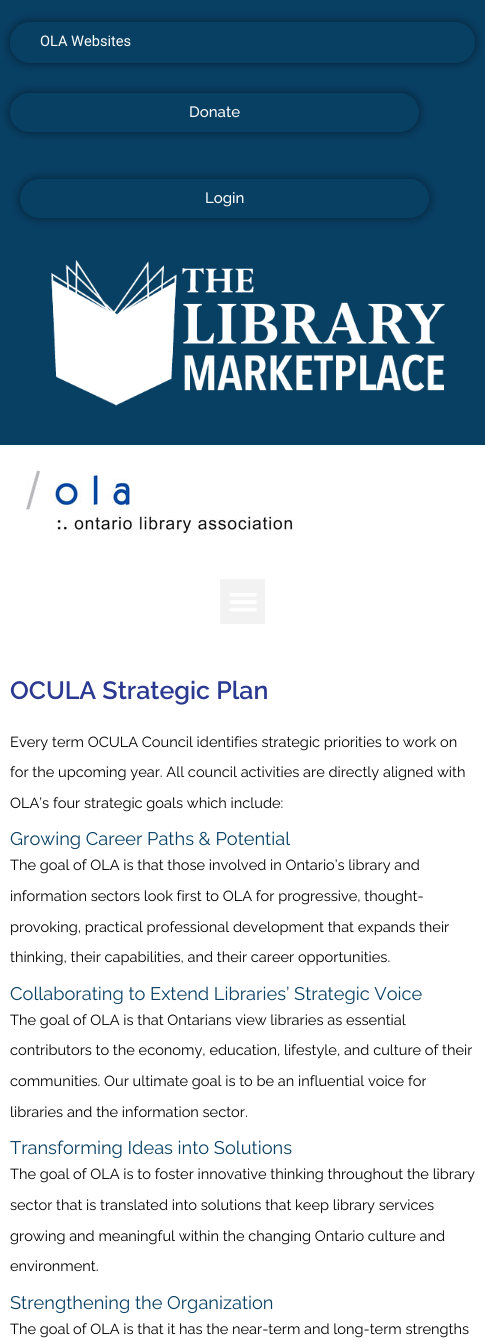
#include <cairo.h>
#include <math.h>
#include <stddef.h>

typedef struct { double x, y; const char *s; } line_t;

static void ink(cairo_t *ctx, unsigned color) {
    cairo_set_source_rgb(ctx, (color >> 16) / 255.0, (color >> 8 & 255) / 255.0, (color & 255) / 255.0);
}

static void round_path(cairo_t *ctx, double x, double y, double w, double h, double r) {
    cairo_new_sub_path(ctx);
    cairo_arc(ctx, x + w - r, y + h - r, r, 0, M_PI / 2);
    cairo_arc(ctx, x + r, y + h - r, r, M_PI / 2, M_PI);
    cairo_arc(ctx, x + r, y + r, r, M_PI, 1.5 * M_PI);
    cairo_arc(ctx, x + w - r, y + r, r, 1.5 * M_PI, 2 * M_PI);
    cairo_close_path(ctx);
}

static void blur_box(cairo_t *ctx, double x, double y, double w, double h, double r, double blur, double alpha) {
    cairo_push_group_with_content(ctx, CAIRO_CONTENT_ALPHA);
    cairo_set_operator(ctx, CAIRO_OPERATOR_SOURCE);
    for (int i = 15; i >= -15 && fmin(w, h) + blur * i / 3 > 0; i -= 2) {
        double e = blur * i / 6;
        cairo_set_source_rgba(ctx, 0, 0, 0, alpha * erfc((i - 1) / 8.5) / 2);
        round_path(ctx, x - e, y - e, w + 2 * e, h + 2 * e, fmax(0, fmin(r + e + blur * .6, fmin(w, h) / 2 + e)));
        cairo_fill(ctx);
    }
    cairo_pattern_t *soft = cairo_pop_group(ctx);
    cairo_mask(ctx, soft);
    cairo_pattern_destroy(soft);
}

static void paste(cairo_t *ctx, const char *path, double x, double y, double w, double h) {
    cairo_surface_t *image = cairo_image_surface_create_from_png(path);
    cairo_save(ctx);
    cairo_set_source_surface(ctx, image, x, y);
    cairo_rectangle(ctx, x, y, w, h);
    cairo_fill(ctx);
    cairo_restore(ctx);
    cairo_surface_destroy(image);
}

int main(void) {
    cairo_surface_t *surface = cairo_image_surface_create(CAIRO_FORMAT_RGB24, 485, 1344);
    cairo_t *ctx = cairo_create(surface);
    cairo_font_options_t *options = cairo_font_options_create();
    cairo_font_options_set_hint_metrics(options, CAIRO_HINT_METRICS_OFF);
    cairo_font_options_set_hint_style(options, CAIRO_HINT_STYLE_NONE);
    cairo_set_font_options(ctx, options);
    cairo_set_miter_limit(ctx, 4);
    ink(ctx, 0xFFFFFF);
    cairo_paint(ctx);
    ink(ctx, 0x084064);
    cairo_rectangle(ctx, 0, 0, 485, 445);
    cairo_fill(ctx);
    cairo_save(ctx);
    cairo_set_fill_rule(ctx, CAIRO_FILL_RULE_EVEN_ODD);
    cairo_new_path(ctx);
    cairo_move_to(ctx, 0, 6);
    cairo_line_to(ctx, 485, 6);
    cairo_line_to(ctx, 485, 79);
    cairo_line_to(ctx, 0, 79);
    cairo_close_path(ctx);
    cairo_move_to(ctx, 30.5, 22);
    cairo_line_to(ctx, 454.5, 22);
    cairo_curve_to(ctx, 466, 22, 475, 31, 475, 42.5);
    cairo_curve_to(ctx, 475, 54, 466, 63, 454.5, 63);
    cairo_line_to(ctx, 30.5, 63);
    cairo_curve_to(ctx, 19, 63, 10, 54, 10, 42.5);
    cairo_curve_to(ctx, 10, 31, 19, 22, 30.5, 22);
    cairo_close_path(ctx);
    cairo_clip(ctx);
    ink(ctx, 0x000000);
    blur_box(ctx, 10, 22, 465, 41, 20.5, 5, 0.5);
    cairo_restore(ctx);
    cairo_select_font_face(ctx, "Roboto", CAIRO_FONT_SLANT_NORMAL, CAIRO_FONT_WEIGHT_NORMAL);
    cairo_set_font_size(ctx, 14.6);
    ink(ctx, 0xFFFFFF);
    cairo_move_to(ctx, 40, 46);
    cairo_show_text(ctx, "OLA Websites");
    ink(ctx, 0x000000);
    blur_box(ctx, 10, 93, 409, 39, 19.5, 5, 0.5);
    ink(ctx, 0x084064);
    round_path(ctx, 10, 93, 409, 39, 19.5);
    cairo_fill(ctx);
    cairo_select_font_face(ctx, "Raleway Medium", CAIRO_FONT_SLANT_NORMAL, CAIRO_FONT_WEIGHT_NORMAL);
    cairo_set_font_size(ctx, 15);
    ink(ctx, 0xFFFFFF);
    cairo_move_to(ctx, 189, 117);
    cairo_show_text(ctx, "Donate");
    ink(ctx, 0x000000);
    blur_box(ctx, 20, 179, 409, 39, 19.5, 5, 0.5);
    ink(ctx, 0x084064);
    round_path(ctx, 20, 179, 409, 39, 19.5);
    cairo_fill(ctx);
    ink(ctx, 0xFFFFFF);
    cairo_move_to(ctx, 205, 203);
    cairo_show_text(ctx, "Login");
    paste(ctx, "media/1.png", 50, 260, 395, 146);
    paste(ctx, "media/2.png", 26, 470, 271, 65);
    ink(ctx, 0xF2F2F2);
    cairo_rectangle(ctx, 220, 579, 45, 45);
    cairo_fill(ctx);
    paste(ctx, "media/3.png", 229, 593, 28, 19);
    cairo_select_font_face(ctx, "Raleway SemiBold", CAIRO_FONT_SLANT_NORMAL, CAIRO_FONT_WEIGHT_NORMAL);
    cairo_set_font_size(ctx, 25);
    ink(ctx, 0x2B3990);
    cairo_move_to(ctx, 10, 699);
    cairo_show_text(ctx, "OCULA Strategic Plan");
    cairo_select_font_face(ctx, "Raleway", CAIRO_FONT_SLANT_NORMAL, CAIRO_FONT_WEIGHT_NORMAL);
    cairo_set_font_size(ctx, 14.6);
    ink(ctx, 0x000000);
    {
        static const line_t items[] = {
            {10, 747, "Every term OCULA Council identifies strategic priorities to work on"},
            {10, 777, "for the upcoming year. All council activities are directly aligned with"},
            {10, 808, "OLA’s four strategic goals which include:"},
        };
        for (size_t i = 0; i < sizeof items / sizeof *items; i++) {
            cairo_move_to(ctx, items[i].x, items[i].y);
            cairo_show_text(ctx, items[i].s);
        }
    }
    cairo_set_font_size(ctx, 18.25);
    ink(ctx, 0x084064);
    cairo_move_to(ctx, 10, 845);
    cairo_show_text(ctx, "Growing Career Paths & Potential");
    cairo_set_font_size(ctx, 14.6);
    ink(ctx, 0x000000);
    {
        static const line_t items[] = {
            {10, 870, "The goal of OLA is that those involved in Ontario’s library and"},
            {10, 901, "information sectors look first to OLA for progressive, thought-"},
            {10, 932, "provoking, practical professional development that expands their"},
            {10, 962, "thinking, their capabilities, and their career opportunities."},
        };
        for (size_t i = 0; i < sizeof items / sizeof *items; i++) {
            cairo_move_to(ctx, items[i].x, items[i].y);
            cairo_show_text(ctx, items[i].s);
        }
    }
    cairo_set_font_size(ctx, 18.25);
    ink(ctx, 0x084064);
    cairo_move_to(ctx, 10, 1000);
    cairo_show_text(ctx, "Collaborating to Extend Libraries’ Strategic Voice");
    cairo_set_font_size(ctx, 14.6);
    ink(ctx, 0x000000);
    {
        static const line_t items[] = {
            {10, 1025, "The goal of OLA is that Ontarians view libraries as essential"},
            {10, 1055, "contributors to the economy, education, lifestyle, and culture of their"},
            {10, 1086, "communities. Our ultimate goal is to be an influential voice for"},
            {10, 1117, "libraries and the information sector."},
        };
        for (size_t i = 0; i < sizeof items / sizeof *items; i++) {
            cairo_move_to(ctx, items[i].x, items[i].y);
            cairo_show_text(ctx, items[i].s);
        }
    }
    cairo_set_font_size(ctx, 18.25);
    ink(ctx, 0x084064);
    cairo_move_to(ctx, 10, 1154);
    cairo_show_text(ctx, "Transforming Ideas into Solutions");
    cairo_set_font_size(ctx, 14.6);
    ink(ctx, 0x000000);
    {
        static const line_t items[] = {
            {10, 1179, "The goal of OLA is to foster innovative thinking throughout the library"},
            {10, 1210, "sector that is translated into solutions that keep library services"},
            {10, 1241, "growing and meaningful within the changing Ontario culture and"},
            {10, 1271, "environment."},
        };
        for (size_t i = 0; i < sizeof items / sizeof *items; i++) {
            cairo_move_to(ctx, items[i].x, items[i].y);
            cairo_show_text(ctx, items[i].s);
        }
    }
    cairo_set_font_size(ctx, 18.25);
    ink(ctx, 0x084064);
    cairo_move_to(ctx, 10, 1309);
    cairo_show_text(ctx, "Strengthening the Organization");
    cairo_set_font_size(ctx, 14.6);
    ink(ctx, 0x000000);
    cairo_move_to(ctx, 10, 1334);
    cairo_show_text(ctx, "The goal of OLA is that it has the near-term and long-term strengths");
    cairo_surface_write_to_png(surface, "image.png");
    cairo_font_options_destroy(options);
    cairo_destroy(ctx);
    cairo_surface_destroy(surface);
    return 0;
}
